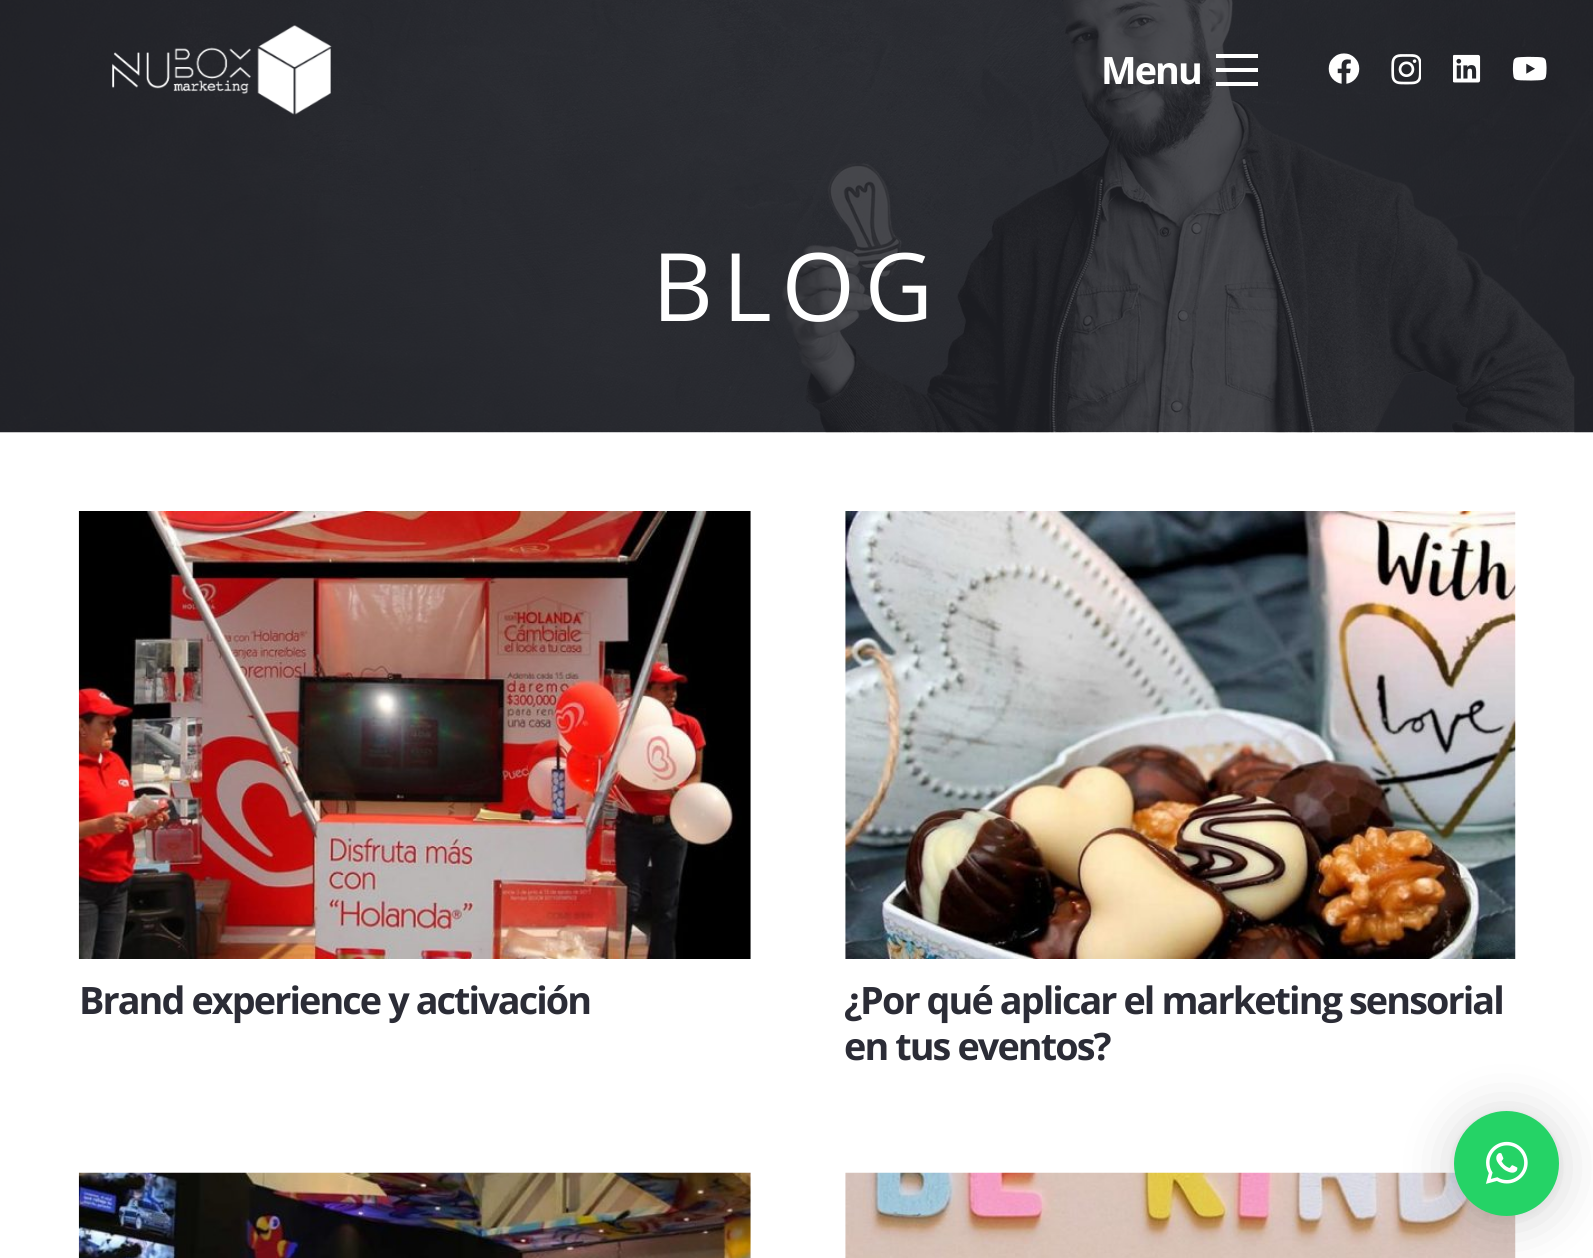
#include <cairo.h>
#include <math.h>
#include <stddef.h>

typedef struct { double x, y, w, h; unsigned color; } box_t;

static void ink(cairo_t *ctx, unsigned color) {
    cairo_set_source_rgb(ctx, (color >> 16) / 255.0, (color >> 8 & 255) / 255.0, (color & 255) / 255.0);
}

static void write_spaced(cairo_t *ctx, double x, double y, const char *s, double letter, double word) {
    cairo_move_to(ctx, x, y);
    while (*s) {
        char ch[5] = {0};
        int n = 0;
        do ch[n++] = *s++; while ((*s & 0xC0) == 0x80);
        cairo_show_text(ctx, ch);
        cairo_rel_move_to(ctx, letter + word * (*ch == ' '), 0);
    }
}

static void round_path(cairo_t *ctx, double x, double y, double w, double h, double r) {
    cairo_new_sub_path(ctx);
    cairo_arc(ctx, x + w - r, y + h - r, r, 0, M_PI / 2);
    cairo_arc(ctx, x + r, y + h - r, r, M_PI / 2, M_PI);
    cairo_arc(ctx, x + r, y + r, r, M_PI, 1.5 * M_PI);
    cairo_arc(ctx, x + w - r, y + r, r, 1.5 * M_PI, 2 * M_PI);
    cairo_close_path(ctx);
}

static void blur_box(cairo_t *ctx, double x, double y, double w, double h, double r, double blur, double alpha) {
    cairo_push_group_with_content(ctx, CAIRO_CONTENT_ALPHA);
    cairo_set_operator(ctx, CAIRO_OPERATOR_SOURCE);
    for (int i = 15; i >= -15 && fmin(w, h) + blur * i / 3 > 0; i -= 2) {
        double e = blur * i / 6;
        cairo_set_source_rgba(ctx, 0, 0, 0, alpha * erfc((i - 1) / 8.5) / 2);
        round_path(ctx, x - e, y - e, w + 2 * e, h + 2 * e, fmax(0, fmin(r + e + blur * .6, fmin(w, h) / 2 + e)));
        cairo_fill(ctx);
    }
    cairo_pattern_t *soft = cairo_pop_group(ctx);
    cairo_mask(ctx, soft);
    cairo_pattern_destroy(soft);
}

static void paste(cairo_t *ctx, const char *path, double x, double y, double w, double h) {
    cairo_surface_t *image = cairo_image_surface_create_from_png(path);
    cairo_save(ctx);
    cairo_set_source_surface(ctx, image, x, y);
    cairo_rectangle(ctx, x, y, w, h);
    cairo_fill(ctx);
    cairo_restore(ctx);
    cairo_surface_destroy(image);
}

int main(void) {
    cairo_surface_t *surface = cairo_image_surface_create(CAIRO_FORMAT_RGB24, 1593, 1258);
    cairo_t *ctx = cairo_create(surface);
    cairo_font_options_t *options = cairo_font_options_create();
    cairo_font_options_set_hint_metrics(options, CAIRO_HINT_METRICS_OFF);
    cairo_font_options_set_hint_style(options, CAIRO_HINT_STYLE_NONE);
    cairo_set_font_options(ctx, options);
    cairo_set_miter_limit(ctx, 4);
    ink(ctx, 0xFFFFFF);
    cairo_paint(ctx);
    paste(ctx, "media/6.png", 0, 0, 1593, 433);
    paste(ctx, "media/1.png", 112, 25, 220, 90);
    cairo_select_font_face(ctx, "Open Sans", CAIRO_FONT_SLANT_NORMAL, CAIRO_FONT_WEIGHT_BOLD);
    cairo_set_font_size(ctx, 37.75);
    ink(ctx, 0xFFFFFF);
    write_spaced(ctx, 1101, 84, "Menu", -1.9, 0);
    {
        static const box_t items[] = {
            {1216, 68, 42, 4, 0xFFFFFF},
            {1216, 54, 42, 4, 0xFFFFFF},
            {1216, 82, 42, 4, 0xFFFFFF},
        };
        for (size_t i = 0; i < sizeof items / sizeof *items; i++) {
            ink(ctx, items[i].color);
            cairo_rectangle(ctx, items[i].x, items[i].y, items[i].w, items[i].h);
            cairo_fill(ctx);
        }
    }
    paste(ctx, "media/2.png", 1328, 53, 32, 31);
    paste(ctx, "media/3.png", 1391, 54, 30, 31);
    paste(ctx, "media/4.png", 1453, 54, 28, 29);
    paste(ctx, "media/5.png", 1512, 56, 35, 25);
    cairo_select_font_face(ctx, "Open Sans", CAIRO_FONT_SLANT_NORMAL, CAIRO_FONT_WEIGHT_NORMAL);
    cairo_set_font_size(ctx, 94.5);
    write_spaced(ctx, 652, 321, "BLOG", 9.5, 0);
    paste(ctx, "media/7.png", 78, 511, 673, 448);
    cairo_select_font_face(ctx, "Open Sans", CAIRO_FONT_SLANT_NORMAL, CAIRO_FONT_WEIGHT_BOLD);
    cairo_set_font_size(ctx, 37.75);
    ink(ctx, 0x2B2C36);
    write_spaced(ctx, 79, 1014, "Brand experience y activación", -1.9, 0);
    paste(ctx, "media/8.png", 845, 511, 671, 448);
    write_spaced(ctx, 844, 1014, "¿Por qué aplicar el marketing sensorial", -1.9, 0);
    write_spaced(ctx, 844, 1060, "en tus eventos?", -1.9, 0);
    paste(ctx, "media/9.png", 78, 1172, 673, 86);
    paste(ctx, "media/10.png", 845, 1172, 671, 86);
    ink(ctx, 0x000000);
    blur_box(ctx, 1454, 1115, 105, 105, 52.5, 28, 0.16);
    blur_box(ctx, 1454, 1113, 105, 105, 52.5, 5, 0.06);
    ink(ctx, 0x25D366);
    cairo_arc(ctx, 1506.5, 1163.5, 52.5, 0, 2 * M_PI);
    cairo_fill(ctx);
    paste(ctx, "media/11.png", 1485, 1141, 43, 43);
    cairo_surface_write_to_png(surface, "image.png");
    cairo_font_options_destroy(options);
    cairo_destroy(ctx);
    cairo_surface_destroy(surface);
    return 0;
}
